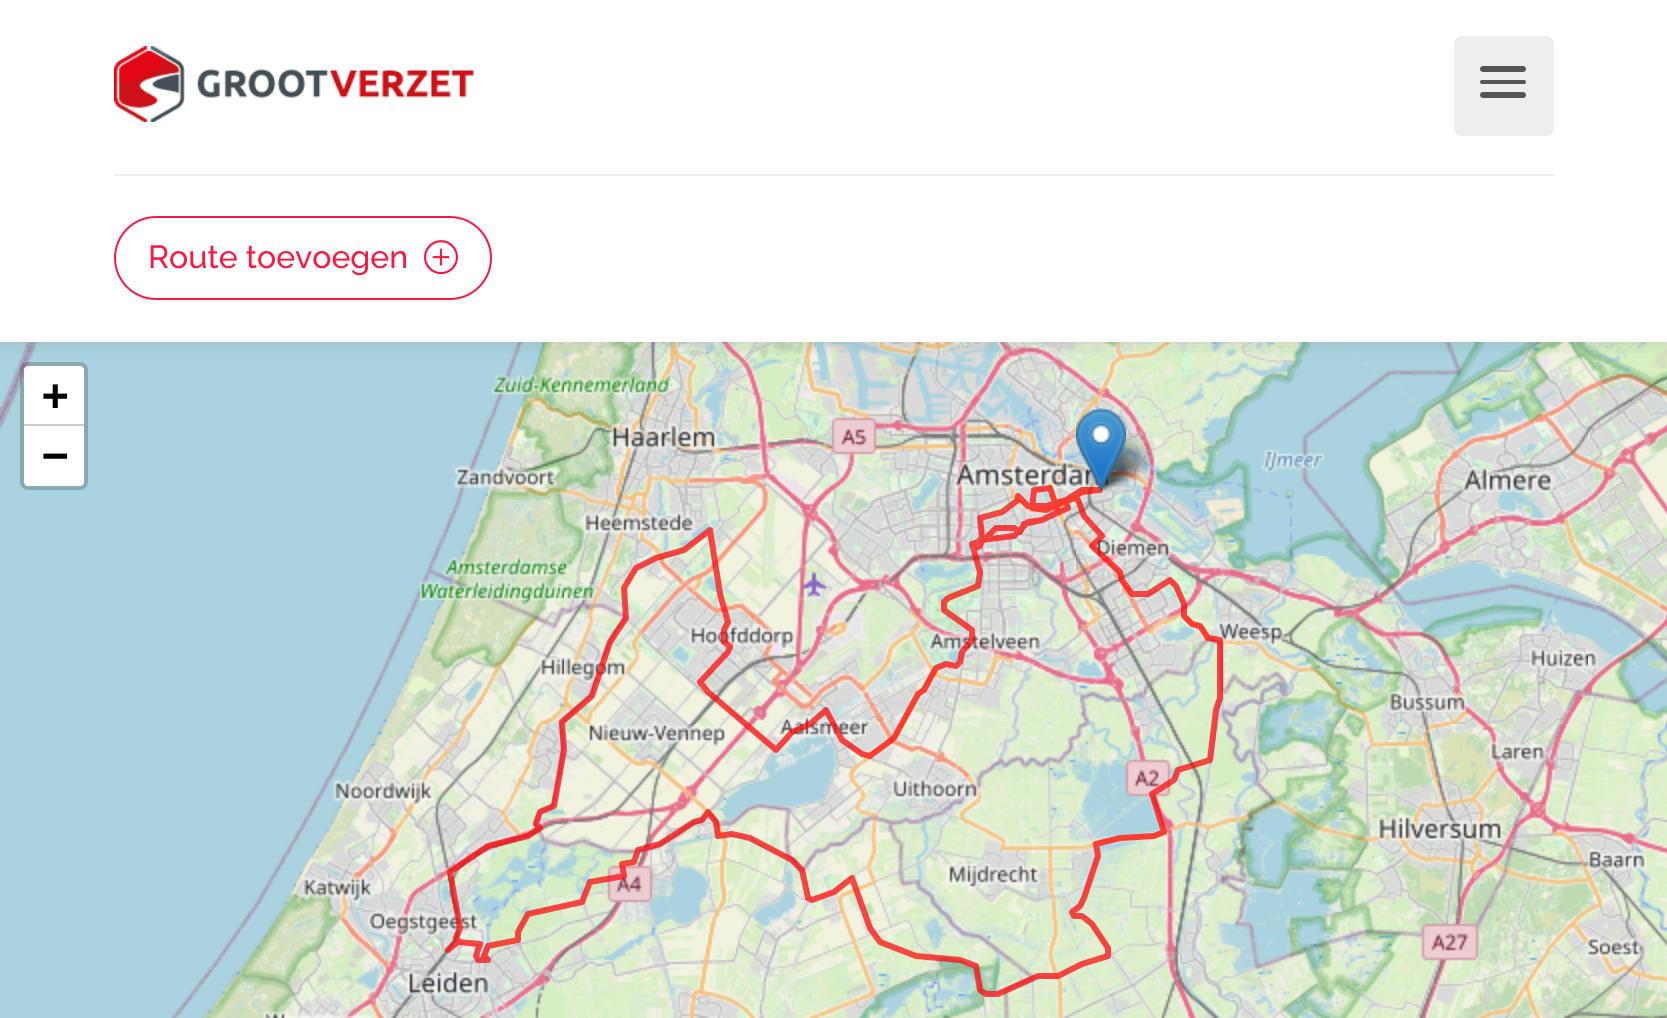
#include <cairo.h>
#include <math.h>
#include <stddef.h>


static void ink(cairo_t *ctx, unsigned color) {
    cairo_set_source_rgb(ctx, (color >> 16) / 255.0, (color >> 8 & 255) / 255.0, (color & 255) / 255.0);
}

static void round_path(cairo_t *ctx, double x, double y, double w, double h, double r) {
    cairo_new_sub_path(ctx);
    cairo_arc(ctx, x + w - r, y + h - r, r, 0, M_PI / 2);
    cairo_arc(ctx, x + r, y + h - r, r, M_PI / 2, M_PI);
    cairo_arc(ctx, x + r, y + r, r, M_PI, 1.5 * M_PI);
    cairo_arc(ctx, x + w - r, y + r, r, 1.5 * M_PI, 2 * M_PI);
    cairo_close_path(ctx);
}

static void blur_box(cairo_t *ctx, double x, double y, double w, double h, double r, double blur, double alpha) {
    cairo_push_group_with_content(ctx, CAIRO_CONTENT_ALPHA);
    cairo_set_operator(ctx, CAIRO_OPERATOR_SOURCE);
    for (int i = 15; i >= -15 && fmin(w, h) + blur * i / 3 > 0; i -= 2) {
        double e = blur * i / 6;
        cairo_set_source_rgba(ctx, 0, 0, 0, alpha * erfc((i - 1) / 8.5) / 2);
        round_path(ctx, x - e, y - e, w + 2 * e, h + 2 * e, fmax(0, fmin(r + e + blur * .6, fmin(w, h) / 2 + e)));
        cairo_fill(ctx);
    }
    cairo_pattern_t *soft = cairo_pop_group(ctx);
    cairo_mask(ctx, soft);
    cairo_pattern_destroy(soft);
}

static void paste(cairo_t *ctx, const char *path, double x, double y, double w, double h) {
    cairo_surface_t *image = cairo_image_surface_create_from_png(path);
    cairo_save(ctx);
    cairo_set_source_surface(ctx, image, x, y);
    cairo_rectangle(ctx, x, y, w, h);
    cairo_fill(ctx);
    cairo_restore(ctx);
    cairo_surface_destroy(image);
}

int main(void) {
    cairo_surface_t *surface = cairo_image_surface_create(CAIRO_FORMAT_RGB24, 1667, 1018);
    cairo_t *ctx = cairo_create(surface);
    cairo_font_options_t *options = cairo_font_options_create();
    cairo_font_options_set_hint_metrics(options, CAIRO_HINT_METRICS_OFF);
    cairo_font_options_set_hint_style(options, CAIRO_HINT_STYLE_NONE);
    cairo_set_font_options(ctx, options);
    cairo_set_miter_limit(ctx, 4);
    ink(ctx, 0xFFFFFF);
    cairo_paint(ctx);
    paste(ctx, "media/3.png", 0, 342, 52, 382);
    paste(ctx, "media/4.png", 52, 342, 512, 382);
    paste(ctx, "media/5.png", 564, 342, 512, 382);
    paste(ctx, "media/6.png", 1076, 342, 512, 382);
    paste(ctx, "media/7.png", 1588, 342, 79, 382);
    cairo_save(ctx);
    cairo_rectangle(ctx, 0, 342, 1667, 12);
    cairo_clip(ctx);
    ink(ctx, 0x000000);
    blur_box(ctx, 0, 0, 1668, 342, 0, 12, 0.12);
    cairo_restore(ctx);
    paste(ctx, "media/1.png", 114, 46, 360, 76);
    ink(ctx, 0xEEEEEE);
    round_path(ctx, 1454, 36, 100, 100, 8);
    cairo_fill(ctx);
    ink(ctx, 0x555555);
    round_path(ctx, 1480, 92, 46, 6, 3);
    cairo_fill(ctx);
    round_path(ctx, 1480, 66, 46, 6, 3);
    cairo_fill(ctx);
    round_path(ctx, 1480, 80, 46, 4, 2);
    cairo_fill(ctx);
    ink(ctx, 0xEEEEEE);
    cairo_rectangle(ctx, 114, 174, 1440, 2);
    cairo_fill(ctx);
    round_path(ctx, 115, 217, 376, 82, 41);
    ink(ctx, 0xF91942);
    cairo_stroke(ctx);
    cairo_select_font_face(ctx, "Raleway Medium", CAIRO_FONT_SLANT_NORMAL, CAIRO_FONT_WEIGHT_NORMAL);
    cairo_set_font_size(ctx, 32);
    cairo_move_to(ctx, 148, 268);
    cairo_show_text(ctx, "Route toevoegen");
    paste(ctx, "media/2.png", 424, 240, 34, 35);
    ink(ctx, 0xAAD3DF);
    cairo_rectangle(ctx, 0, 724, 52, 294);
    cairo_fill(ctx);
    paste(ctx, "media/8.png", 52, 724, 512, 294);
    paste(ctx, "media/9.png", 564, 724, 512, 294);
    paste(ctx, "media/10.png", 1076, 724, 512, 294);
    paste(ctx, "media/11.png", 1588, 724, 79, 294);
    paste(ctx, "media/16.png", 445, 485, 778, 512);
    paste(ctx, "media/14.png", 1094, 433, 60, 57);
    paste(ctx, "media/15.png", 1094, 433, 60, 57);
    paste(ctx, "media/12.png", 1076, 408, 50, 82);
    paste(ctx, "media/13.png", 1076, 408, 50, 82);
    round_path(ctx, 22, 364, 64, 124, 6);
    cairo_set_source_rgba(ctx, 0, 0, 0, 0.2);
    cairo_set_line_width(ctx, 4);
    cairo_stroke(ctx);
    ink(ctx, 0xFFFFFF);
    cairo_new_path(ctx);
    cairo_move_to(ctx, 28, 366);
    cairo_line_to(ctx, 80, 366);
    cairo_curve_to(ctx, 82, 366, 84, 368, 84, 370);
    cairo_line_to(ctx, 84, 426);
    cairo_line_to(ctx, 24, 426);
    cairo_line_to(ctx, 24, 370);
    cairo_curve_to(ctx, 24, 368, 26, 366, 28, 366);
    cairo_close_path(ctx);
    cairo_fill(ctx);
    ink(ctx, 0xCCCCCC);
    cairo_rectangle(ctx, 24, 424, 60, 2);
    cairo_fill(ctx);
    cairo_select_font_face(ctx, "DejaVu Sans Mono", CAIRO_FONT_SLANT_NORMAL, CAIRO_FONT_WEIGHT_BOLD);
    cairo_set_font_size(ctx, 44);
    ink(ctx, 0x000000);
    cairo_move_to(ctx, 42, 410);
    cairo_show_text(ctx, "+");
    ink(ctx, 0xFFFFFF);
    cairo_new_path(ctx);
    cairo_move_to(ctx, 24, 426);
    cairo_line_to(ctx, 84, 426);
    cairo_line_to(ctx, 84, 482);
    cairo_curve_to(ctx, 84, 484, 82, 486, 80, 486);
    cairo_line_to(ctx, 28, 486);
    cairo_curve_to(ctx, 26, 486, 24, 484, 24, 482);
    cairo_close_path(ctx);
    cairo_fill(ctx);
    ink(ctx, 0x000000);
    cairo_move_to(ctx, 42, 470);
    cairo_show_text(ctx, "−");
    cairo_surface_write_to_png(surface, "image.png");
    cairo_font_options_destroy(options);
    cairo_destroy(ctx);
    cairo_surface_destroy(surface);
    return 0;
}
